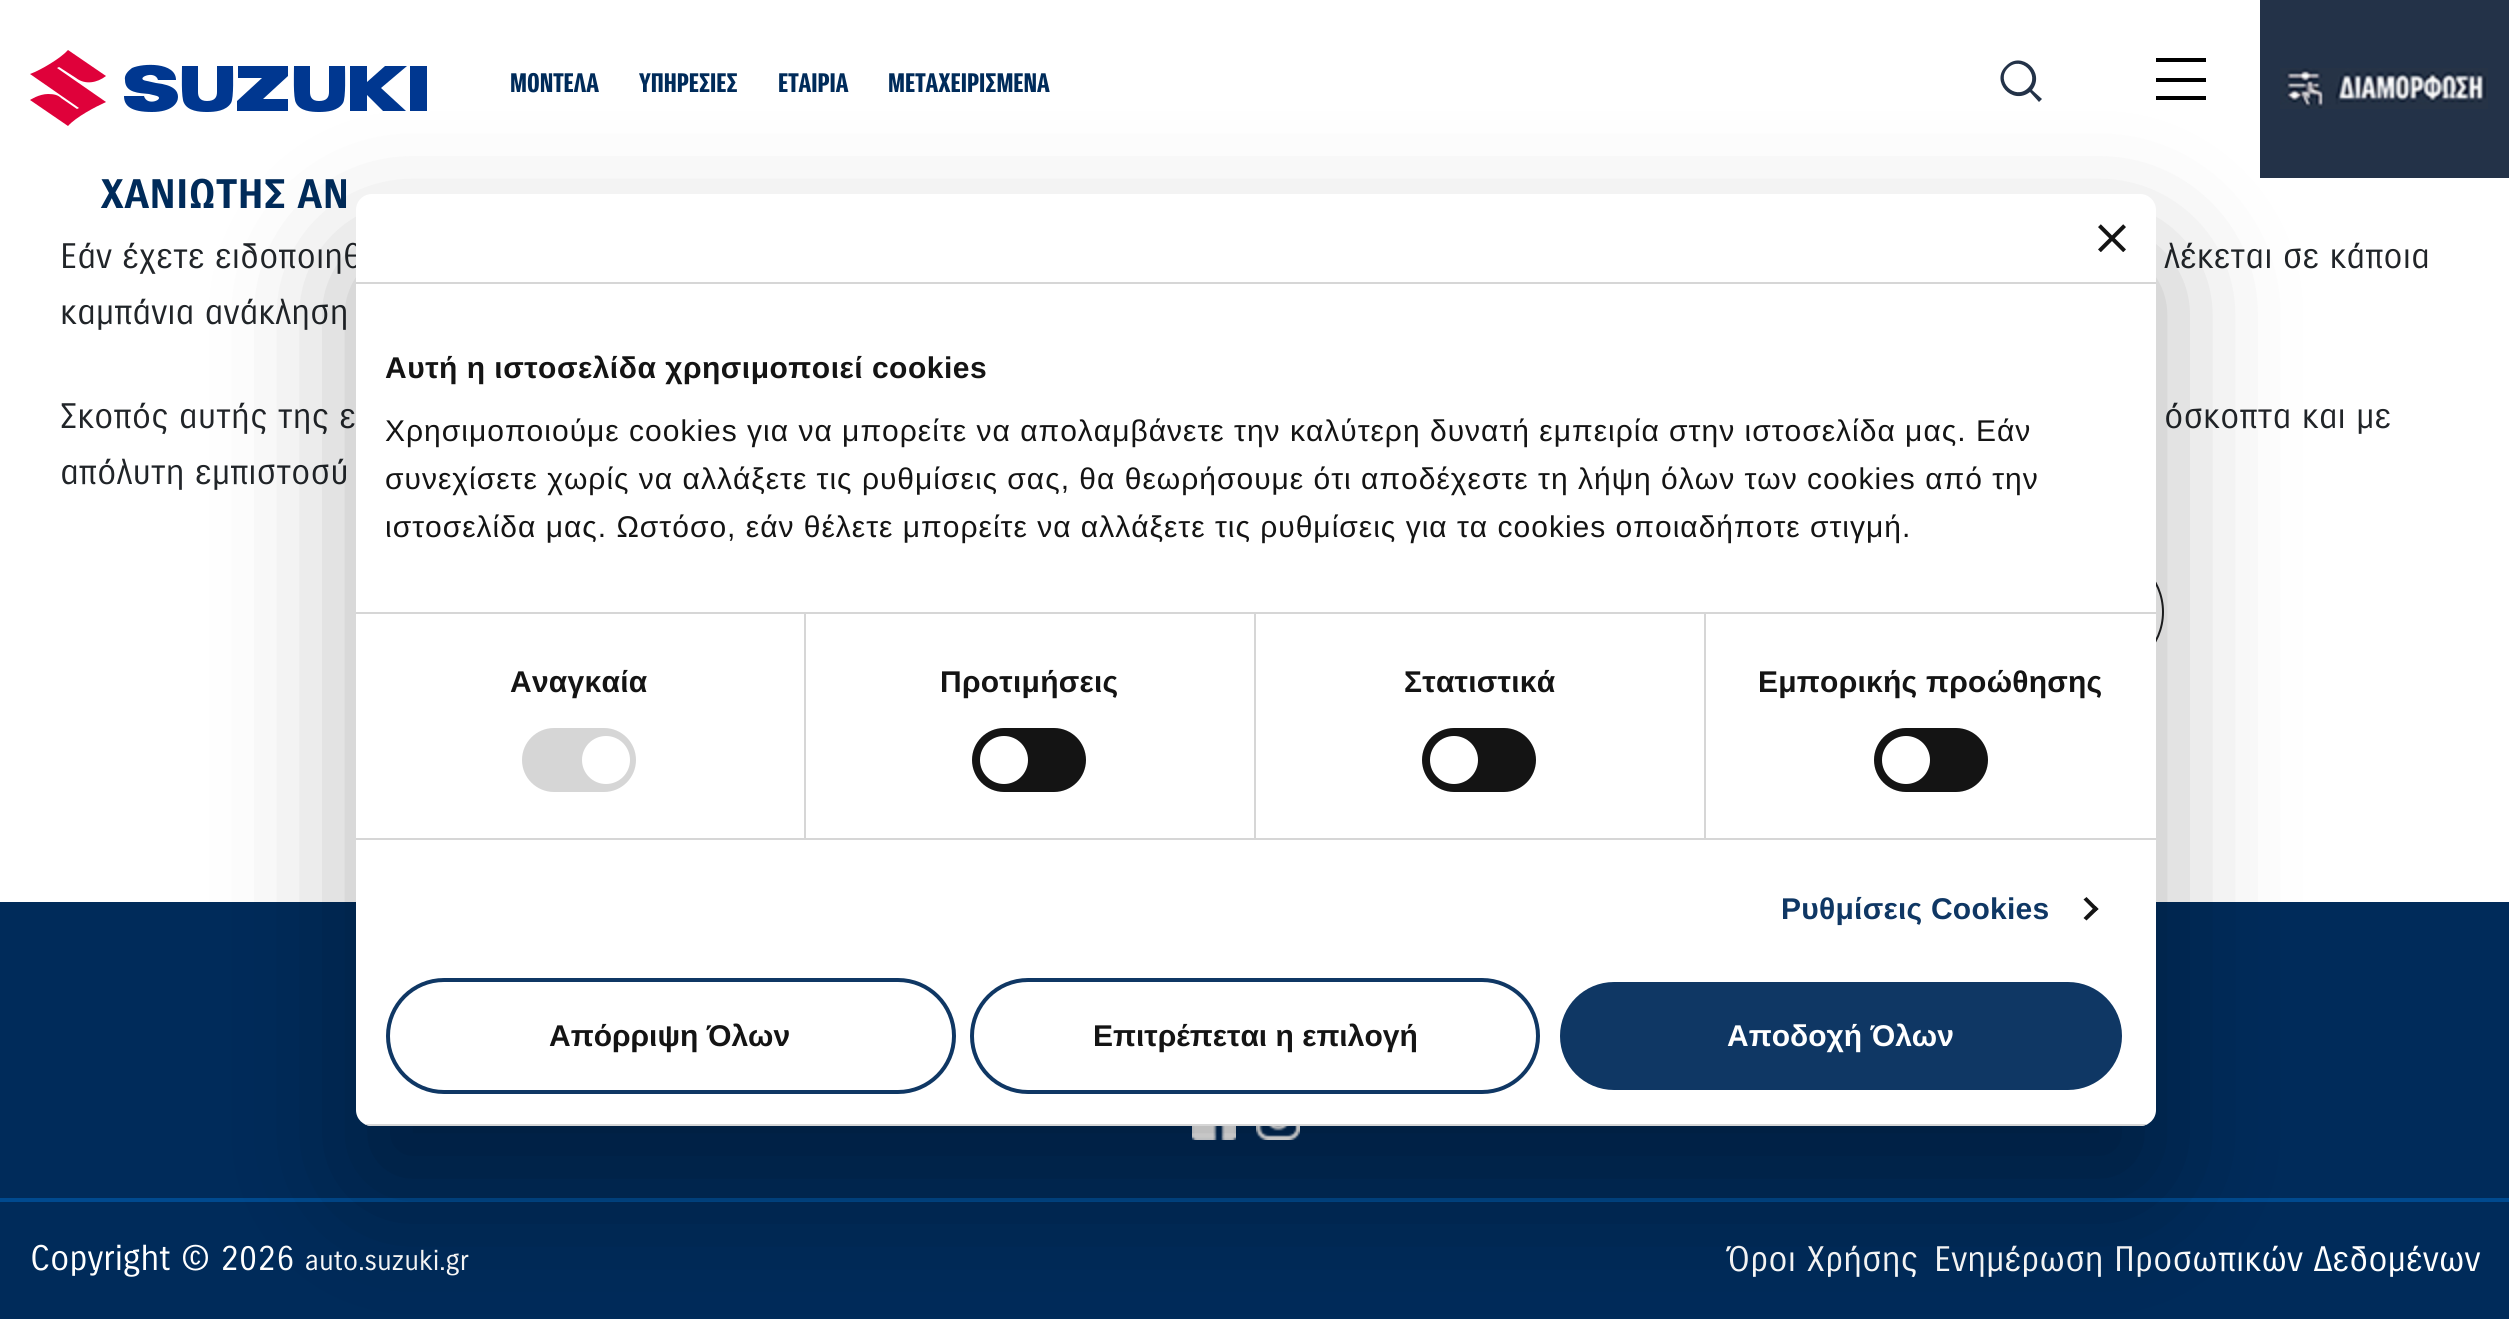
#include <cairo.h>
#include <math.h>
#include <stddef.h>

typedef struct { double x, y; const char *s; } line_t;
typedef struct { double x, y, w, h; unsigned color; } box_t;

static void ink(cairo_t *ctx, unsigned color) {
    cairo_set_source_rgb(ctx, (color >> 16) / 255.0, (color >> 8 & 255) / 255.0, (color & 255) / 255.0);
}

static void write_spaced(cairo_t *ctx, double x, double y, const char *s, double letter, double word) {
    cairo_move_to(ctx, x, y);
    while (*s) {
        char ch[5] = {0};
        int n = 0;
        do ch[n++] = *s++; while ((*s & 0xC0) == 0x80);
        cairo_show_text(ctx, ch);
        cairo_rel_move_to(ctx, letter + word * (*ch == ' '), 0);
    }
}

static void round_path(cairo_t *ctx, double x, double y, double w, double h, double r) {
    cairo_new_sub_path(ctx);
    cairo_arc(ctx, x + w - r, y + h - r, r, 0, M_PI / 2);
    cairo_arc(ctx, x + r, y + h - r, r, M_PI / 2, M_PI);
    cairo_arc(ctx, x + r, y + r, r, M_PI, 1.5 * M_PI);
    cairo_arc(ctx, x + w - r, y + r, r, 1.5 * M_PI, 2 * M_PI);
    cairo_close_path(ctx);
}

static void blur_box(cairo_t *ctx, double x, double y, double w, double h, double r, double blur, double alpha) {
    cairo_push_group_with_content(ctx, CAIRO_CONTENT_ALPHA);
    cairo_set_operator(ctx, CAIRO_OPERATOR_SOURCE);
    for (int i = 15; i >= -15 && fmin(w, h) + blur * i / 3 > 0; i -= 2) {
        double e = blur * i / 6;
        cairo_set_source_rgba(ctx, 0, 0, 0, alpha * erfc((i - 1) / 8.5) / 2);
        round_path(ctx, x - e, y - e, w + 2 * e, h + 2 * e, fmax(0, fmin(r + e + blur * .6, fmin(w, h) / 2 + e)));
        cairo_fill(ctx);
    }
    cairo_pattern_t *soft = cairo_pop_group(ctx);
    cairo_mask(ctx, soft);
    cairo_pattern_destroy(soft);
}

static void paste(cairo_t *ctx, const char *path, double x, double y, double w, double h) {
    cairo_surface_t *image = cairo_image_surface_create_from_png(path);
    cairo_save(ctx);
    cairo_set_source_surface(ctx, image, x, y);
    cairo_rectangle(ctx, x, y, w, h);
    cairo_fill(ctx);
    cairo_restore(ctx);
    cairo_surface_destroy(image);
}

int main(void) {
    cairo_surface_t *surface = cairo_image_surface_create(CAIRO_FORMAT_RGB24, 2509, 1319);
    cairo_t *ctx = cairo_create(surface);
    cairo_font_options_t *options = cairo_font_options_create();
    cairo_font_options_set_hint_metrics(options, CAIRO_HINT_METRICS_OFF);
    cairo_font_options_set_hint_style(options, CAIRO_HINT_STYLE_NONE);
    cairo_set_font_options(ctx, options);
    cairo_set_miter_limit(ctx, 4);
    ink(ctx, 0xFFFFFF);
    cairo_paint(ctx);
    ink(ctx, 0xDF013A);
    cairo_new_path(ctx);
    cairo_move_to(ctx, 59, 67);
    cairo_line_to(ctx, 57, 68);
    cairo_line_to(ctx, 106, 102);
    cairo_curve_to(ctx, 95, 107, 76, 117, 68, 126);
    cairo_line_to(ctx, 30, 100);
    cairo_curve_to(ctx, 30, 100, 39, 94, 48, 94);
    cairo_curve_to(ctx, 54, 94, 58, 95, 61, 98);
    cairo_line_to(ctx, 77, 109);
    cairo_line_to(ctx, 79, 108);
    cairo_line_to(ctx, 30, 74);
    cairo_curve_to(ctx, 41, 70, 61, 58, 68, 50);
    cairo_line_to(ctx, 106, 76);
    cairo_curve_to(ctx, 97, 83, 85, 85, 76, 78);
    cairo_close_path(ctx);
    cairo_fill(ctx);
    ink(ctx, 0x003790);
    cairo_new_path(ctx);
    cairo_move_to(ctx, 156, 83);
    cairo_curve_to(ctx, 174, 85, 178, 91, 178, 97);
    cairo_curve_to(ctx, 178, 103, 172, 112, 152, 112);
    cairo_curve_to(ctx, 131, 112, 124, 106, 124, 96);
    cairo_line_to(ctx, 144, 96);
    cairo_curve_to(ctx, 147, 107, 165, 99, 157, 96);
    cairo_line_to(ctx, 149, 94);
    cairo_curve_to(ctx, 139, 93, 125, 93, 125, 80);
    cairo_curve_to(ctx, 124, 75, 128, 71, 132, 68);
    cairo_curve_to(ctx, 143, 63, 176, 62, 176, 80);
    cairo_line_to(ctx, 158, 80);
    cairo_curve_to(ctx, 155, 69, 133, 79, 147, 81);
    cairo_close_path(ctx);
    cairo_fill(ctx);
    cairo_new_path(ctx);
    cairo_move_to(ctx, 238, 78);
    cairo_line_to(ctx, 238, 66);
    cairo_line_to(ctx, 288, 66);
    cairo_line_to(ctx, 288, 76);
    cairo_line_to(ctx, 263, 99);
    cairo_line_to(ctx, 288, 99);
    cairo_line_to(ctx, 288, 111);
    cairo_line_to(ctx, 237, 111);
    cairo_line_to(ctx, 237, 101);
    cairo_line_to(ctx, 262, 78);
    cairo_close_path(ctx);
    cairo_fill(ctx);
    cairo_rectangle(ctx, 410, 66, 17, 45);
    cairo_fill(ctx);
    cairo_new_path(ctx);
    cairo_move_to(ctx, 385, 66);
    cairo_line_to(ctx, 407, 66);
    cairo_line_to(ctx, 381, 88);
    cairo_line_to(ctx, 406, 111);
    cairo_line_to(ctx, 383, 111);
    cairo_line_to(ctx, 367, 95);
    cairo_line_to(ctx, 367, 111);
    cairo_line_to(ctx, 350, 111);
    cairo_line_to(ctx, 350, 66);
    cairo_line_to(ctx, 367, 66);
    cairo_line_to(ctx, 367, 82);
    cairo_close_path(ctx);
    cairo_fill(ctx);
    cairo_new_path(ctx);
    cairo_move_to(ctx, 217, 92);
    cairo_line_to(ctx, 217, 66);
    cairo_line_to(ctx, 233, 66);
    cairo_curve_to(ctx, 233, 73, 234, 98, 231, 103);
    cairo_curve_to(ctx, 226, 111, 215, 112, 207, 112);
    cairo_curve_to(ctx, 199, 112, 188, 111, 184, 103);
    cairo_curve_to(ctx, 181, 98, 182, 73, 182, 66);
    cairo_line_to(ctx, 198, 66);
    cairo_line_to(ctx, 198, 92);
    cairo_curve_to(ctx, 198, 97, 200, 101, 207, 101);
    cairo_curve_to(ctx, 215, 101, 217, 97, 217, 92);
    cairo_close_path(ctx);
    cairo_fill(ctx);
    cairo_new_path(ctx);
    cairo_move_to(ctx, 329, 92);
    cairo_line_to(ctx, 329, 66);
    cairo_line_to(ctx, 345, 66);
    cairo_curve_to(ctx, 345, 73, 346, 98, 343, 103);
    cairo_curve_to(ctx, 338, 111, 327, 112, 319, 112);
    cairo_curve_to(ctx, 311, 112, 300, 111, 296, 103);
    cairo_curve_to(ctx, 293, 98, 294, 73, 294, 66);
    cairo_line_to(ctx, 310, 66);
    cairo_line_to(ctx, 310, 92);
    cairo_curve_to(ctx, 310, 97, 312, 101, 319, 101);
    cairo_curve_to(ctx, 327, 101, 329, 97, 329, 92);
    cairo_close_path(ctx);
    cairo_fill(ctx);
    cairo_select_font_face(ctx, "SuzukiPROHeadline", CAIRO_FONT_SLANT_NORMAL, CAIRO_FONT_WEIGHT_BOLD);
    cairo_set_font_size(ctx, 26);
    ink(ctx, 0x002B5A);
    {
        static const line_t items[] = {
            {510, 92, "ΜΟΝΤΕΛΑ"},
            {639, 92, "ΥΠΗΡΕΣΙΕΣ"},
            {778, 92, "EΤΑIΡΙΑ"},
            {888, 92, "METAXEIΡΙΣΜΕΝΑ"},
        };
        for (size_t i = 0; i < sizeof items / sizeof *items; i++) {
            cairo_move_to(ctx, items[i].x, items[i].y);
            cairo_show_text(ctx, items[i].s);
        }
    }
    ink(ctx, 0x233248);
    cairo_new_path(ctx);
    cairo_move_to(ctx, 2006, 66);
    cairo_curve_to(ctx, 2021, 50, 2046, 72, 2032, 90);
    cairo_line_to(ctx, 2042, 99);
    cairo_line_to(ctx, 2039, 102);
    cairo_line_to(ctx, 2030, 92);
    cairo_curve_to(ctx, 2012, 106, 1990, 81, 2006, 66);
    cairo_close_path(ctx);
    cairo_move_to(ctx, 2008, 68);
    cairo_curve_to(ctx, 1995, 81, 2015, 101, 2028, 88);
    cairo_curve_to(ctx, 2041, 75, 2021, 55, 2008, 68);
    cairo_close_path(ctx);
    cairo_fill(ctx);
    {
        static const box_t items[] = {
            {2156, 58, 50, 4, 0x000000},
            {2156, 78, 50, 4, 0x000000},
            {2156, 96, 50, 4, 0x000000},
            {2260, 0, 249, 178, 0x233248},
        };
        for (size_t i = 0; i < sizeof items / sizeof *items; i++) {
            ink(ctx, items[i].color);
            cairo_rectangle(ctx, items[i].x, items[i].y, items[i].w, items[i].h);
            cairo_fill(ctx);
        }
    }
    paste(ctx, "media/1.png", 2280, 68, 208, 41);
    cairo_select_font_face(ctx, "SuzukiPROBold", CAIRO_FONT_SLANT_NORMAL, CAIRO_FONT_WEIGHT_BOLD);
    cairo_set_font_size(ctx, 40);
    ink(ctx, 0x002B5A);
    cairo_move_to(ctx, 100, 208);
    cairo_show_text(ctx, "ΧΑΝΙΩΤΗΣ ΑΝ");
    cairo_select_font_face(ctx, "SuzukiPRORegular", CAIRO_FONT_SLANT_NORMAL, CAIRO_FONT_WEIGHT_NORMAL);
    cairo_set_font_size(ctx, 34.4);
    ink(ctx, 0x212529);
    {
        static const line_t items[] = {
            {60, 268, "Εάν έχετε ειδοποιηθ"},
            {2164, 268, "λέκεται σε κάποια"},
            {60, 324, "καμπάνια ανάκληση"},
            {60, 428, "Σκοπός αυτής της ε"},
            {2164, 428, "όσκοπτα και με"},
            {60, 484, "απόλυτη εμπιστοσύ"},
        };
        for (size_t i = 0; i < sizeof items / sizeof *items; i++) {
            cairo_move_to(ctx, items[i].x, items[i].y);
            cairo_show_text(ctx, items[i].s);
        }
    }
    round_path(ctx, 1391, 551, 772, 122, 61);
    ink(ctx, 0x202123);
    cairo_stroke(ctx);
    ink(ctx, 0x002B5A);
    cairo_rectangle(ctx, 0, 902, 2509, 296);
    cairo_fill(ctx);
    paste(ctx, "media/2.png", 1192, 1126, 44, 14);
    paste(ctx, "media/3.png", 1256, 1126, 44, 14);
    cairo_rectangle(ctx, 0, 1202, 2509, 117);
    cairo_fill(ctx);
    ink(ctx, 0x004A8F);
    cairo_rectangle(ctx, 0, 1198, 2509, 4);
    cairo_fill(ctx);
    ink(ctx, 0xFFFFFF);
    cairo_move_to(ctx, 30, 1270);
    cairo_show_text(ctx, "Copyright © 2026");
    cairo_set_font_size(ctx, 27.5);
    cairo_move_to(ctx, 305, 1270);
    cairo_show_text(ctx, "auto.suzuki.gr");
    cairo_set_font_size(ctx, 34.4);
    cairo_move_to(ctx, 1726, 1271);
    cairo_show_text(ctx, "Όροι Χρήσης");
    cairo_move_to(ctx, 1934, 1271);
    cairo_show_text(ctx, "Ενημέρωση Προσωπικών Δεδομένων");
    ink(ctx, 0x000000);
    blur_box(ctx, 356, 258, 1800, 932, 16, 68, 0.3);
    ink(ctx, 0xFFFFFF);
    round_path(ctx, 356, 194, 1800, 932, 16);
    cairo_fill(ctx);
    ink(ctx, 0xD6D6D6);
    cairo_rectangle(ctx, 356, 282, 1800, 2);
    cairo_fill(ctx);
    paste(ctx, "media/4.png", 2098, 224, 28, 28);
    cairo_rectangle(ctx, 356, 612, 1800, 2);
    cairo_fill(ctx);
    cairo_select_font_face(ctx, "Liberation Sans", CAIRO_FONT_SLANT_NORMAL, CAIRO_FONT_WEIGHT_BOLD);
    cairo_set_font_size(ctx, 30);
    ink(ctx, 0x141414);
    write_spaced(ctx, 385, 378, "Αυτή η ιστοσελίδα χρησιμοποιεί cookies", 0.5, 0);
    cairo_select_font_face(ctx, "Liberation Sans", CAIRO_FONT_SLANT_NORMAL, CAIRO_FONT_WEIGHT_NORMAL);
    {
        static const line_t items[] = {
            {385, 441, "Χρησιμοποιούμε cookies για να μπορείτε να απολαμβάνετε την καλύτερη δυνατή εμπειρία στην ιστοσελίδα μας. Εάν"},
            {385, 489, "συνεχίσετε χωρίς να αλλάξετε τις ρυθμίσεις σας, θα θεωρήσουμε ότι αποδέχεστε τη λήψη όλων των cookies από την"},
            {385, 537, "ιστοσελίδα μας. Ωστόσο, εάν θέλετε μπορείτε να αλλάξετε τις ρυθμίσεις για τα cookies οποιαδήποτε στιγμή."},
        };
        for (size_t i = 0; i < sizeof items / sizeof *items; i++) {
            write_spaced(ctx, items[i].x, items[i].y, items[i].s, 1, 0);
        }
    }
    ink(ctx, 0xD6D6D6);
    cairo_rectangle(ctx, 356, 838, 1800, 2);
    cairo_fill(ctx);
    cairo_rectangle(ctx, 804, 614, 2, 224);
    cairo_fill(ctx);
    cairo_select_font_face(ctx, "Liberation Sans", CAIRO_FONT_SLANT_NORMAL, CAIRO_FONT_WEIGHT_BOLD);
    ink(ctx, 0x141414);
    write_spaced(ctx, 510, 692, "Αναγκαία", 0.25, 0);
    ink(ctx, 0xD6D6D6);
    round_path(ctx, 522, 728, 114, 64, 32);
    cairo_fill(ctx);
    ink(ctx, 0xFFFFFF);
    cairo_arc(ctx, 606, 760, 24, 0, 2 * M_PI);
    cairo_fill(ctx);
    ink(ctx, 0xD6D6D6);
    cairo_rectangle(ctx, 1254, 614, 2, 224);
    cairo_fill(ctx);
    ink(ctx, 0x141414);
    write_spaced(ctx, 940, 692, "Προτιμήσεις", 0.25, 0);
    round_path(ctx, 972, 728, 114, 64, 32);
    cairo_fill(ctx);
    ink(ctx, 0xFFFFFF);
    cairo_arc(ctx, 1004, 760, 24, 0, 2 * M_PI);
    cairo_fill(ctx);
    ink(ctx, 0xD6D6D6);
    cairo_rectangle(ctx, 1704, 614, 2, 224);
    cairo_fill(ctx);
    ink(ctx, 0x141414);
    write_spaced(ctx, 1404, 692, "Στατιστικά", 0.25, 0);
    round_path(ctx, 1422, 728, 114, 64, 32);
    cairo_fill(ctx);
    ink(ctx, 0xFFFFFF);
    cairo_arc(ctx, 1454, 760, 24, 0, 2 * M_PI);
    cairo_fill(ctx);
    ink(ctx, 0x141414);
    write_spaced(ctx, 1758, 692, "Εμπορικής προώθησης", 0.25, 0);
    round_path(ctx, 1874, 728, 114, 64, 32);
    cairo_fill(ctx);
    ink(ctx, 0xFFFFFF);
    cairo_arc(ctx, 1906, 760, 24, 0, 2 * M_PI);
    cairo_fill(ctx);
    ink(ctx, 0x0F3764);
    write_spaced(ctx, 1781, 919, "Ρυθμίσεις Cookies", 0.25, 0);
    ink(ctx, 0x141414);
    cairo_new_path(ctx);
    cairo_move_to(ctx, 2086.5, 897);
    cairo_line_to(ctx, 2098.5, 909);
    cairo_line_to(ctx, 2095.5, 911.5);
    cairo_line_to(ctx, 2083.5, 899.5);
    cairo_close_path(ctx);
    cairo_fill(ctx);
    cairo_new_path(ctx);
    cairo_move_to(ctx, 2095.5, 906);
    cairo_line_to(ctx, 2098.5, 909);
    cairo_line_to(ctx, 2086.5, 920.5);
    cairo_line_to(ctx, 2083.5, 918);
    cairo_close_path(ctx);
    cairo_fill(ctx);
    cairo_save(ctx);
    round_path(ctx, 356, 194, 1800, 932, 16);
    cairo_clip(ctx);
    ink(ctx, 0xD6D6D6);
    cairo_rectangle(ctx, 356, 1124, 1800, 2);
    cairo_fill(ctx);
    cairo_restore(ctx);
    round_path(ctx, 388, 980, 566, 112, 56);
    ink(ctx, 0x0F3764);
    cairo_set_line_width(ctx, 4);
    cairo_stroke(ctx);
    ink(ctx, 0x141414);
    cairo_move_to(ctx, 549, 1046);
    cairo_show_text(ctx, "Απόρριψη Όλων");
    round_path(ctx, 972, 980, 566, 112, 56);
    ink(ctx, 0x0F3764);
    cairo_stroke(ctx);
    ink(ctx, 0x141414);
    cairo_move_to(ctx, 1093, 1046);
    cairo_show_text(ctx, "Επιτρέπεται η επιλογή");
    ink(ctx, 0x0F3764);
    round_path(ctx, 1558, 980, 566, 112, 56);
    cairo_fill_preserve(ctx);
    ink(ctx, 0xFFFFFF);
    cairo_stroke(ctx);
    cairo_move_to(ctx, 1727, 1046);
    cairo_show_text(ctx, "Αποδοχή Όλων");
    cairo_surface_write_to_png(surface, "image.png");
    cairo_font_options_destroy(options);
    cairo_destroy(ctx);
    cairo_surface_destroy(surface);
    return 0;
}
